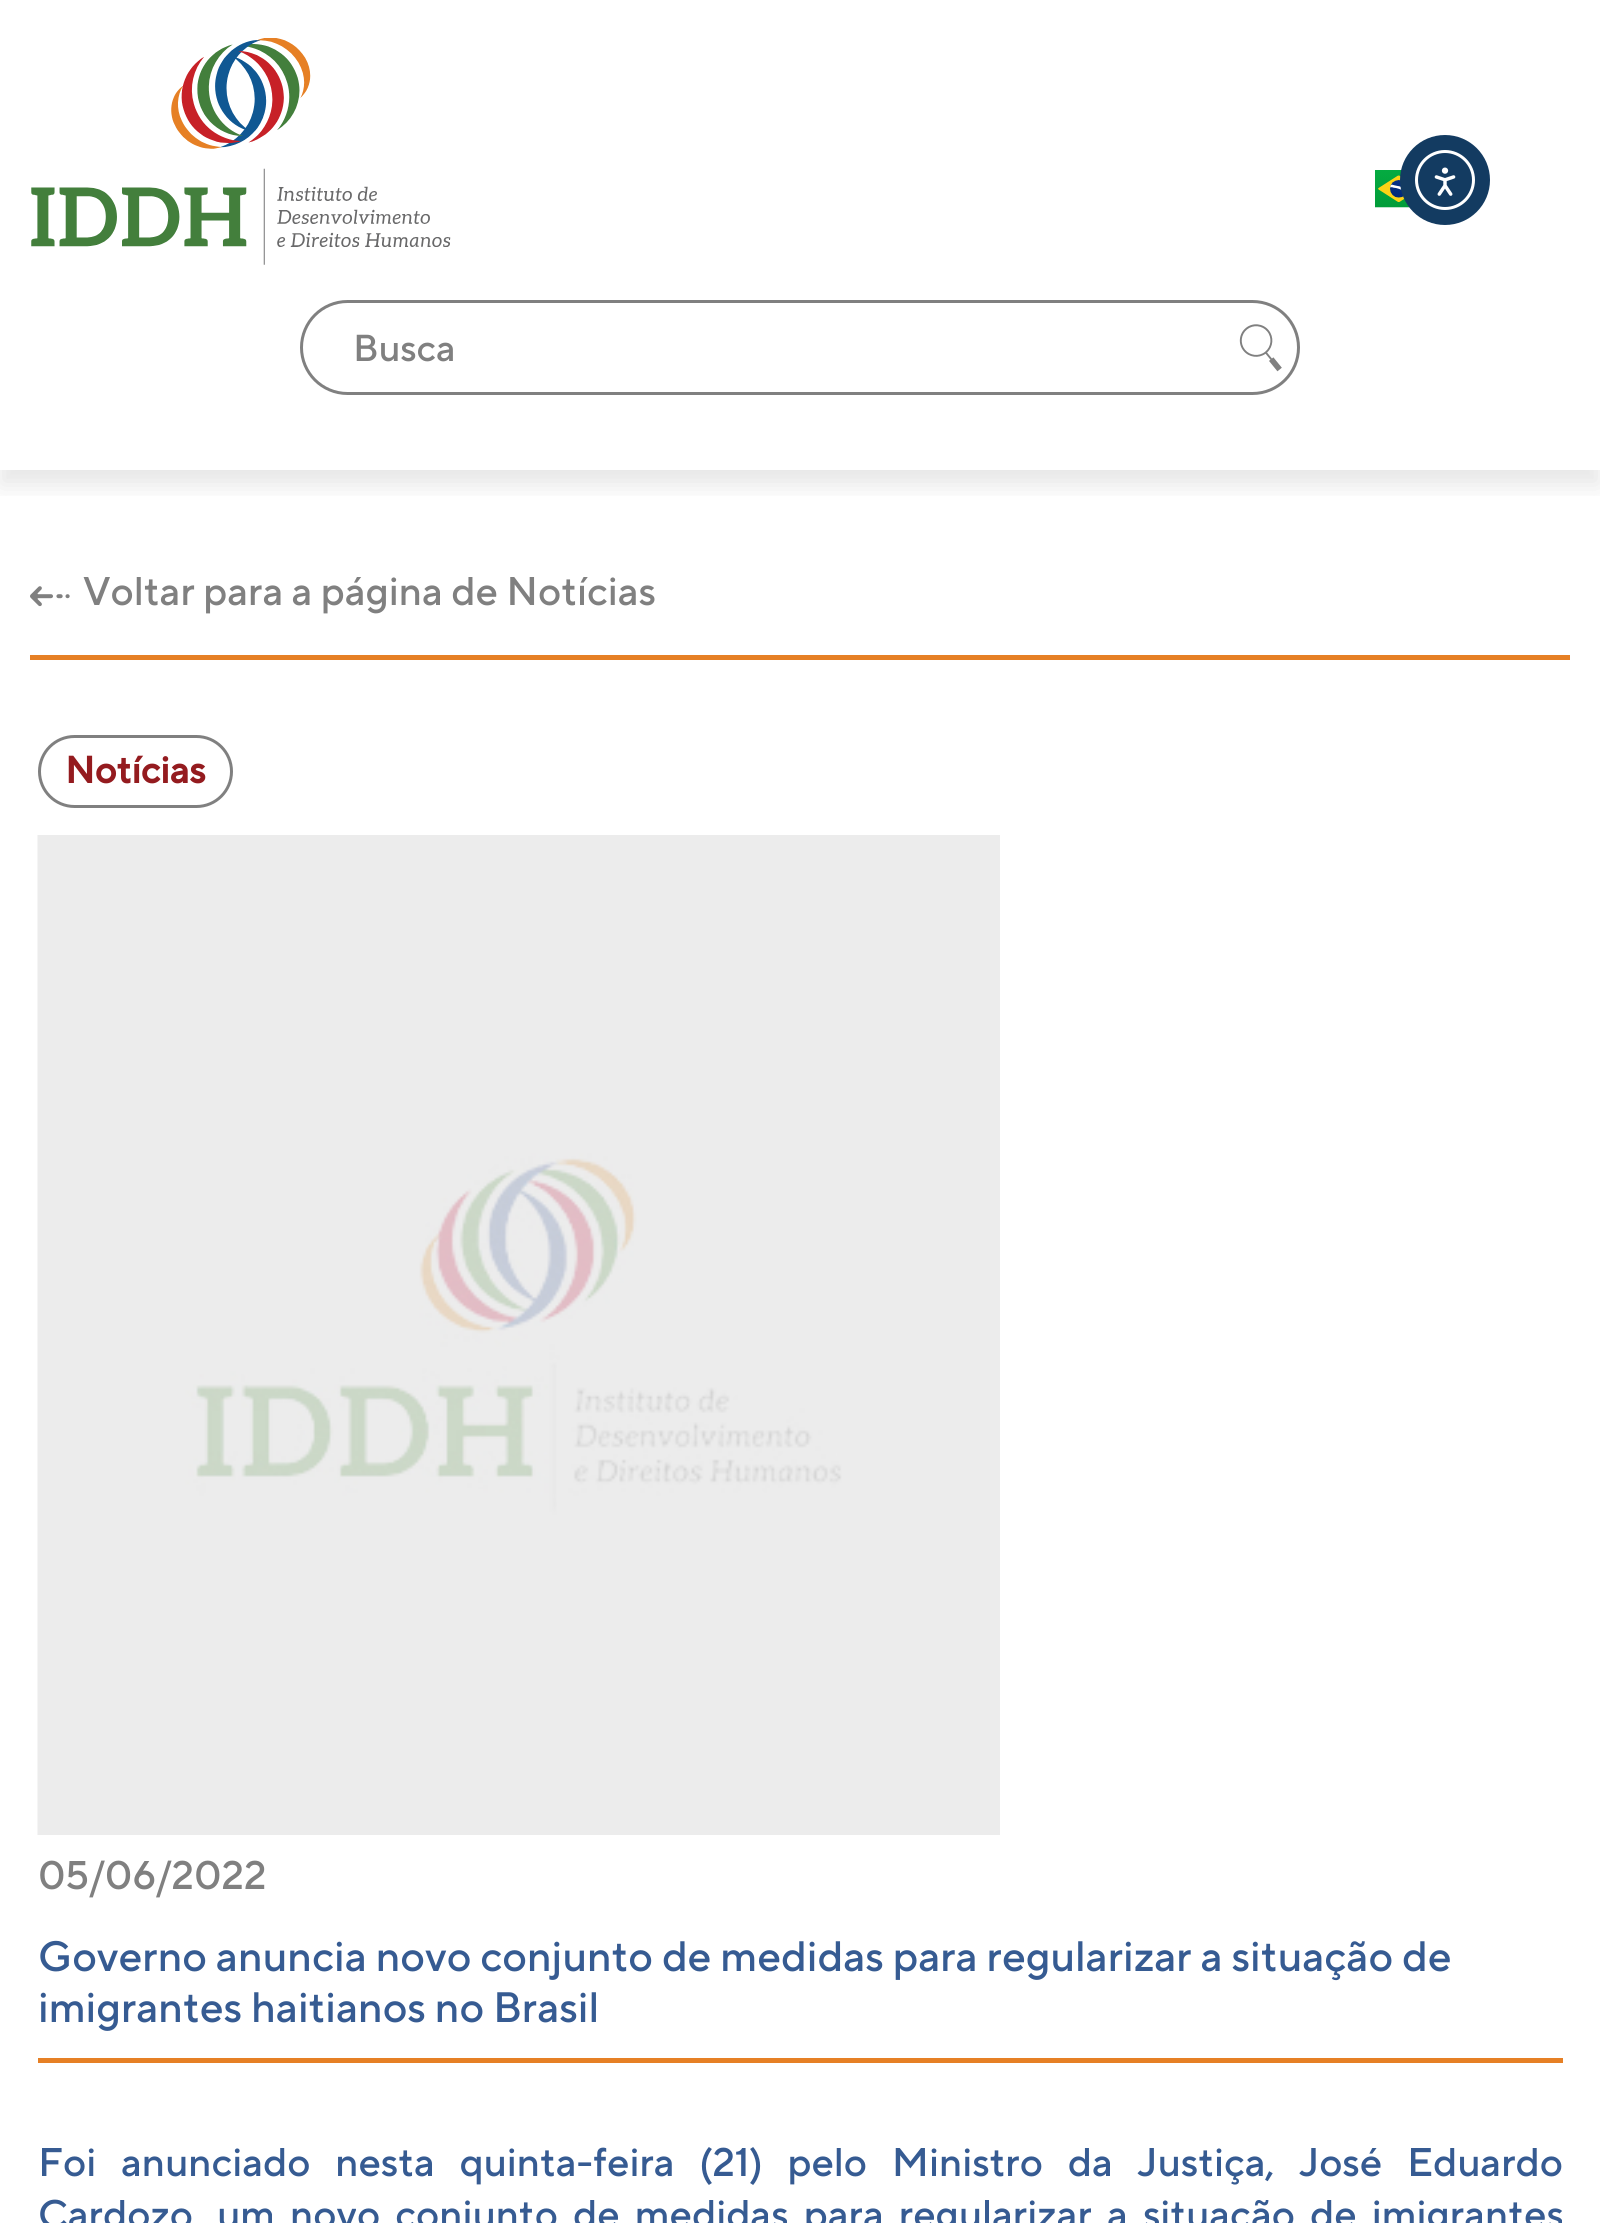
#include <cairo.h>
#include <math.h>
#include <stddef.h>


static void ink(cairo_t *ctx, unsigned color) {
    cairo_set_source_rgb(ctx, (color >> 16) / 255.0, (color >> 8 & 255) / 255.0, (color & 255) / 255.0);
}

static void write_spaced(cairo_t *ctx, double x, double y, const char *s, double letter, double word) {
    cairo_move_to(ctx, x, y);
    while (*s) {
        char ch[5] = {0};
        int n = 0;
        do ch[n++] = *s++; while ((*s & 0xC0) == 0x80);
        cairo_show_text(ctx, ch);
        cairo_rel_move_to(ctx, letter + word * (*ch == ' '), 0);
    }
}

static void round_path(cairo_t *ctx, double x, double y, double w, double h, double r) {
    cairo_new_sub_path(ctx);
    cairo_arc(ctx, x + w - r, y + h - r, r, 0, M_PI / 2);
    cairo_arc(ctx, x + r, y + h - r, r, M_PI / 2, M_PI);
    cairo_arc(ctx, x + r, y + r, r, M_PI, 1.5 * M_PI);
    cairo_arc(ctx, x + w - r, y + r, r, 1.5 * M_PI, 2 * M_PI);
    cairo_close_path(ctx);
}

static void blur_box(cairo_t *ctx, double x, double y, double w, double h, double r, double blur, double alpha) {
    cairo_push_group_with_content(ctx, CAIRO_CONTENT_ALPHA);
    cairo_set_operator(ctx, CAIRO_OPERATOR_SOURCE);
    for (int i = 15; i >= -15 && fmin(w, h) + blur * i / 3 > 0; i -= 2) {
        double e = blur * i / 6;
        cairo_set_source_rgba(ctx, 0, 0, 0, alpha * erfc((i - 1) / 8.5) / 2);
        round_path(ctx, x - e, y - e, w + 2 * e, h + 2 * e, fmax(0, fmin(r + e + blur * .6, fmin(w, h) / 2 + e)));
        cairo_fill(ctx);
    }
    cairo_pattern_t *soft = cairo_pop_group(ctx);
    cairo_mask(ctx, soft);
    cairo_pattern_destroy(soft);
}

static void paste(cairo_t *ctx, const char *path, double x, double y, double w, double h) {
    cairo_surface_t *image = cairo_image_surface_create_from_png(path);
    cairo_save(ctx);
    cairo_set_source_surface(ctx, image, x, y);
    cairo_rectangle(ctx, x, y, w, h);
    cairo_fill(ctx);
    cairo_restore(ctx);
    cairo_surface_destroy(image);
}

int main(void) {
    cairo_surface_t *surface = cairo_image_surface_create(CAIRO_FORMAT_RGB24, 1600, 2223);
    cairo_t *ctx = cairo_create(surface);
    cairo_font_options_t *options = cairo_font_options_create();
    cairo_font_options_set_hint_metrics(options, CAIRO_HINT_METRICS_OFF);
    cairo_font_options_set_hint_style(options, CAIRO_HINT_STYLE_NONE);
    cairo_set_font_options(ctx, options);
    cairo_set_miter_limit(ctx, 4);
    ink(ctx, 0xFFFFFF);
    cairo_paint(ctx);
    paste(ctx, "media/3.png", 1375, 170, 35, 38);
    ink(ctx, 0x133B61);
    cairo_arc(ctx, 1445, 180, 45, 0, 2 * M_PI);
    cairo_fill(ctx);
    cairo_arc(ctx, 1445, 180, 28.5, 0, 2 * M_PI);
    ink(ctx, 0xFFFFFF);
    cairo_set_line_width(ctx, 3);
    cairo_stroke(ctx);
    paste(ctx, "media/1.png", 1434, 167, 22, 29);
    paste(ctx, "media/2.png", 31, 38, 420, 227);
    cairo_save(ctx);
    cairo_rectangle(ctx, 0, 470, 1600, 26);
    cairo_clip(ctx);
    ink(ctx, 0x000000);
    blur_box(ctx, 0, 290, 1600, 195, 0, 12.5, 0.1);
    cairo_restore(ctx);
    round_path(ctx, 301.5, 301.5, 997, 92, 46);
    ink(ctx, 0x808080);
    cairo_stroke(ctx);
    cairo_select_font_face(ctx, "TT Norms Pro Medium", CAIRO_FONT_SLANT_NORMAL, CAIRO_FONT_WEIGHT_NORMAL);
    cairo_set_font_size(ctx, 37.5);
    cairo_move_to(ctx, 353, 361);
    cairo_show_text(ctx, "Busca");
    paste(ctx, "media/4.png", 1239, 324, 43, 48);
    ink(ctx, 0xE68025);
    cairo_rectangle(ctx, 30, 655, 1540, 5);
    cairo_fill(ctx);
    paste(ctx, "media/5.png", 30, 586, 40, 21);
    cairo_set_font_size(ctx, 40);
    ink(ctx, 0x808080);
    cairo_move_to(ctx, 83, 605);
    cairo_show_text(ctx, "Voltar para a página de Notícias");
    round_path(ctx, 39.5, 736.5, 192, 70, 35);
    cairo_stroke(ctx);
    cairo_select_font_face(ctx, "TT Norms Pro", CAIRO_FONT_SLANT_NORMAL, CAIRO_FONT_WEIGHT_BOLD);
    cairo_set_font_size(ctx, 37.5);
    ink(ctx, 0x941B1F);
    cairo_move_to(ctx, 65, 783);
    cairo_show_text(ctx, "Notícias");
    paste(ctx, "media/6.png", 37, 835, 963, 1000);
    cairo_select_font_face(ctx, "TT Norms Pro Medium", CAIRO_FONT_SLANT_NORMAL, CAIRO_FONT_WEIGHT_NORMAL);
    cairo_set_font_size(ctx, 40);
    ink(ctx, 0x808080);
    cairo_move_to(ctx, 38, 1889);
    cairo_show_text(ctx, "05/06/2022");
    ink(ctx, 0xE68025);
    cairo_rectangle(ctx, 38, 2058, 1525, 5);
    cairo_fill(ctx);
    cairo_set_font_size(ctx, 42.5);
    ink(ctx, 0x365B92);
    cairo_move_to(ctx, 38, 1971);
    cairo_show_text(ctx, "Governo anuncia novo conjunto de medidas para regularizar a situação de");
    cairo_move_to(ctx, 38, 2022);
    cairo_show_text(ctx, "imigrantes haitianos no Brasil");
    cairo_set_font_size(ctx, 40);
    write_spaced(ctx, 38, 2176, "Foi anunciado nesta quinta-feira (21) pelo Ministro da Justiça, José Eduardo", 0, 16.4);
    write_spaced(ctx, 38, 2228, "Cardozo, um novo conjunto de medidas para regularizar a situação de imigrantes", 0, 6.75);
    cairo_surface_write_to_png(surface, "image.png");
    cairo_font_options_destroy(options);
    cairo_destroy(ctx);
    cairo_surface_destroy(surface);
    return 0;
}
